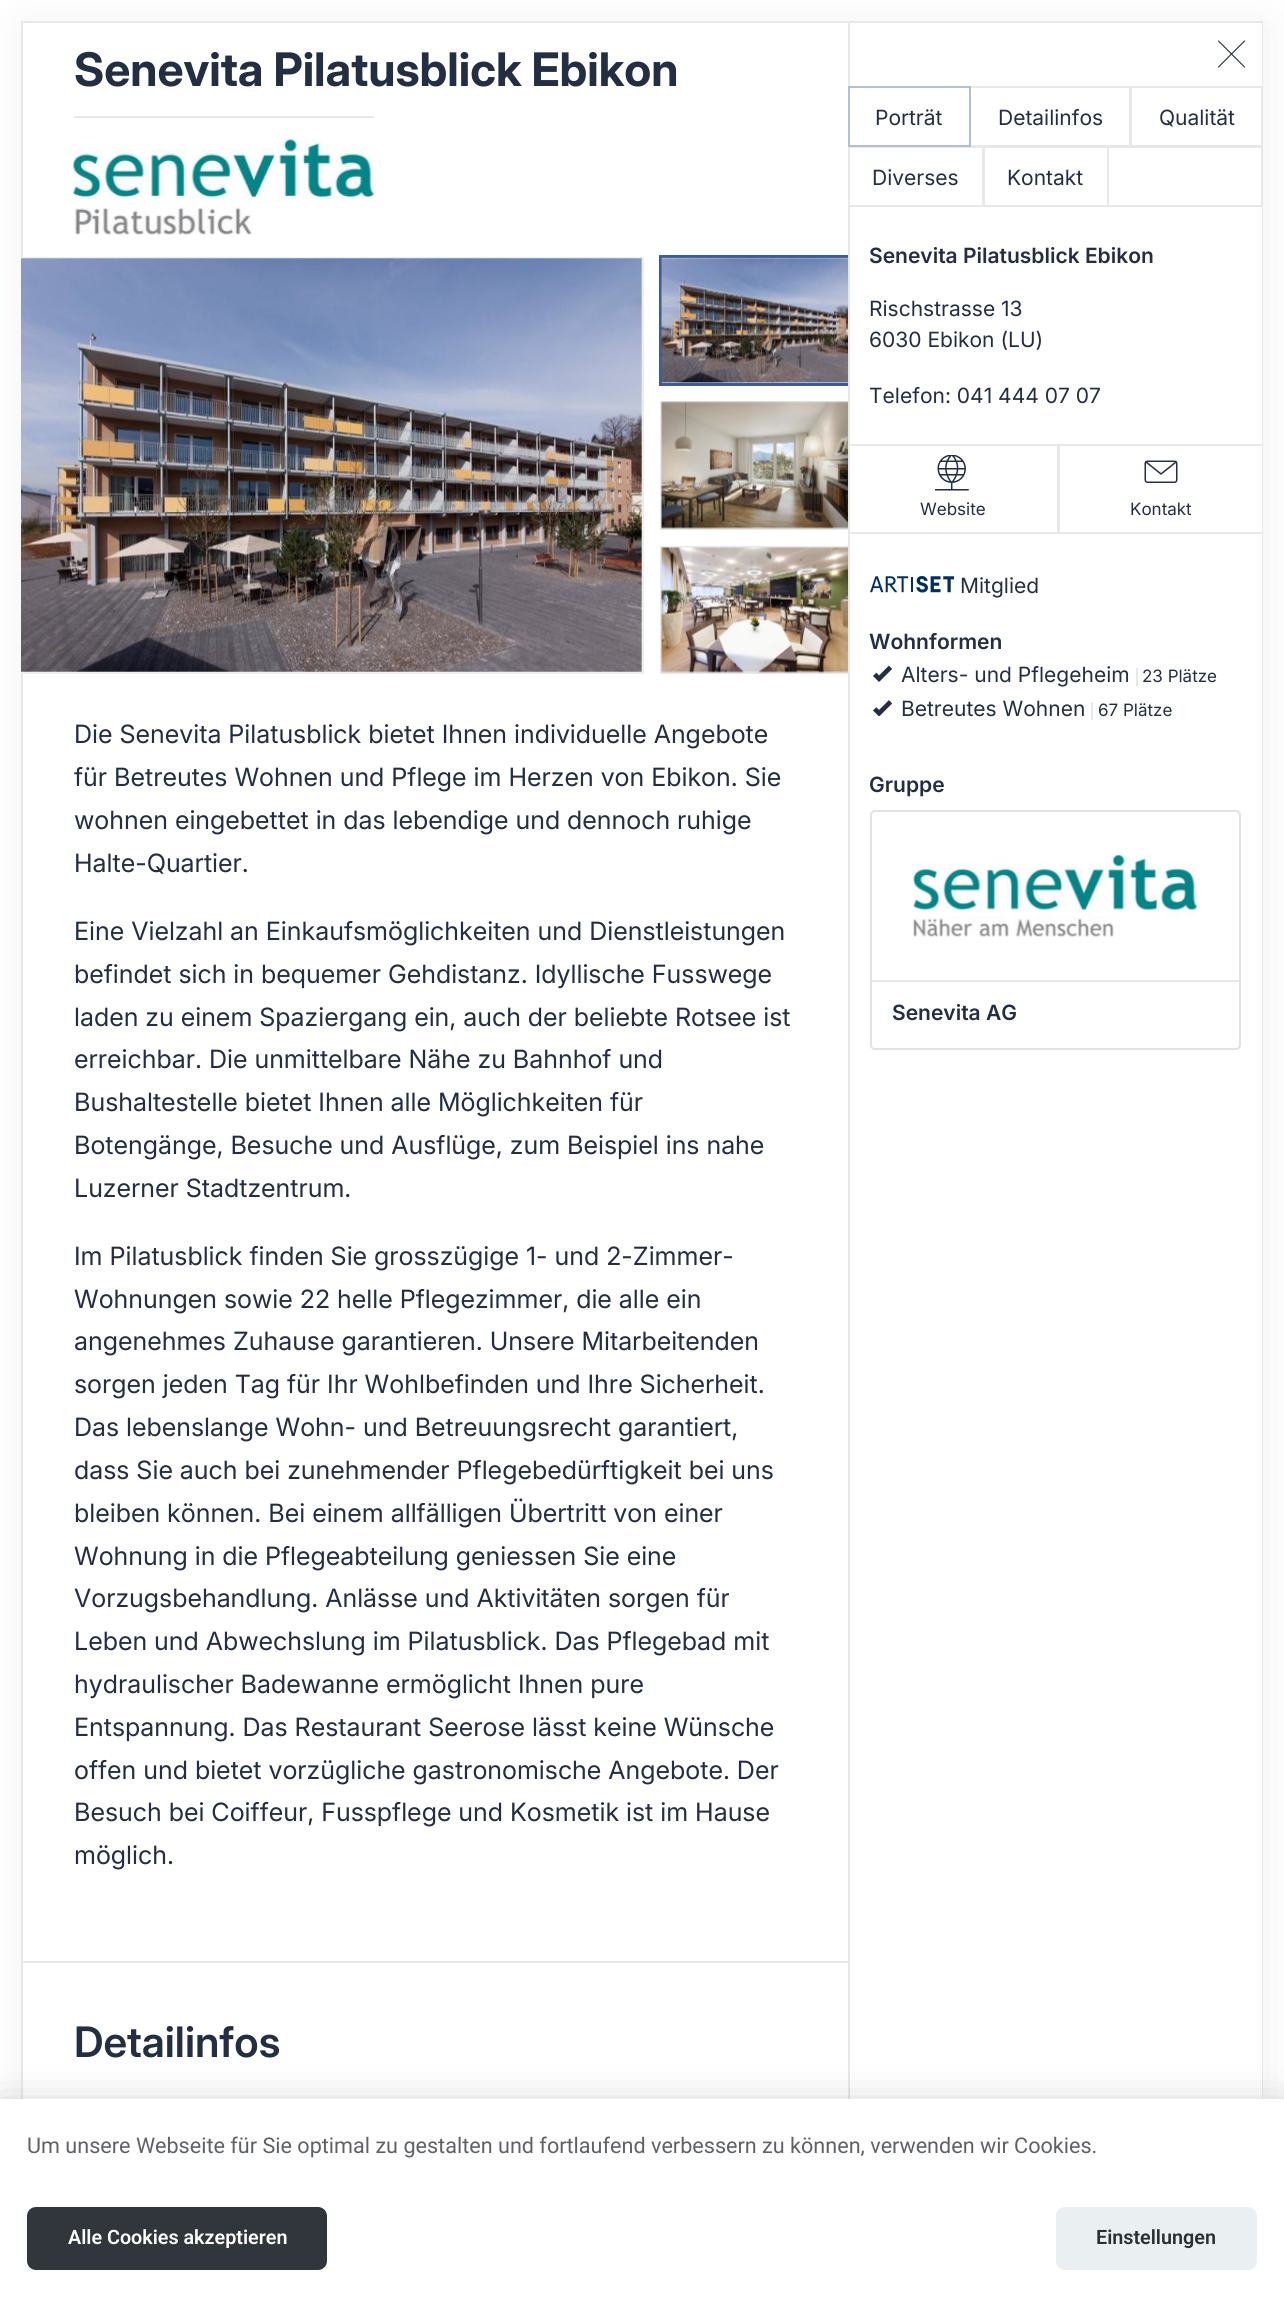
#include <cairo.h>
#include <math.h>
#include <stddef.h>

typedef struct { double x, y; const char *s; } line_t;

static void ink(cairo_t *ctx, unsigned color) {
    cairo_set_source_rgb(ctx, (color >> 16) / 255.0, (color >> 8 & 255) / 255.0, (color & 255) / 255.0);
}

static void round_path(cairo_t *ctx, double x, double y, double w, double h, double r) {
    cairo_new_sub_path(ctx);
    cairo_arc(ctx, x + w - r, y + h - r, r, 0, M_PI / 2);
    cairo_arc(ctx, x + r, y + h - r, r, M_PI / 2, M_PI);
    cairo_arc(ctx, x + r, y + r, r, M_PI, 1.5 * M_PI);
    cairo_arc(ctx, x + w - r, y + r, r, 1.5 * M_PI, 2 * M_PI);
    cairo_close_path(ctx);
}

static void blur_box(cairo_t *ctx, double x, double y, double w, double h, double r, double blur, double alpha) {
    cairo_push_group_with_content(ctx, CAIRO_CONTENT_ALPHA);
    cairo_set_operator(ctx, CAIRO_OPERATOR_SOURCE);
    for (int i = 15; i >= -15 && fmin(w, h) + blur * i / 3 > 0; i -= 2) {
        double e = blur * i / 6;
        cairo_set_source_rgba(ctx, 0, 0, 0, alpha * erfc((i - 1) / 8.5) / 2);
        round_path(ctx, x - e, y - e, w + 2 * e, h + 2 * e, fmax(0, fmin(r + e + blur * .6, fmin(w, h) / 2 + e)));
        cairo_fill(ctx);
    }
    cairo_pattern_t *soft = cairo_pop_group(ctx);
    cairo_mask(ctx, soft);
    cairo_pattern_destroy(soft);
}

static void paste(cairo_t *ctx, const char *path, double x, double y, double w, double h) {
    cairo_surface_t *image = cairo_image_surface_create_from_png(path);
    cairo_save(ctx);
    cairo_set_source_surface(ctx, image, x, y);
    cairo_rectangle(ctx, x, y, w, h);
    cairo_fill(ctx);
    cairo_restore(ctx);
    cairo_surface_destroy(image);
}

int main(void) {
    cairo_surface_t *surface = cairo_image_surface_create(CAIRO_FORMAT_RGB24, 1284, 2311);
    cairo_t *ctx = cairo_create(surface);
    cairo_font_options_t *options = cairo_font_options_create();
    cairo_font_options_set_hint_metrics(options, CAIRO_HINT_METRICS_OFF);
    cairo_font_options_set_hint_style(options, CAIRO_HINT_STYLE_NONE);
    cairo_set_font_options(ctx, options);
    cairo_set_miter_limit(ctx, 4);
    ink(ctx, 0xFFFFFF);
    cairo_paint(ctx);
    ink(ctx, 0x242E42);
    blur_box(ctx, 24, 24, 1242, 2270, 0, 22.5, 0.07);
    ink(ctx, 0xFFFFFF);
    cairo_rectangle(ctx, 23, 23, 825, 2076);
    cairo_fill(ctx);
    cairo_rectangle(ctx, 22, 22, 1240, 2268);
    ink(ctx, 0xE7E8EA);
    cairo_stroke(ctx);
    cairo_select_font_face(ctx, "Inter", CAIRO_FONT_SLANT_NORMAL, CAIRO_FONT_WEIGHT_BOLD);
    cairo_set_font_size(ctx, 46.25);
    ink(ctx, 0x242E42);
    cairo_move_to(ctx, 74, 86);
    cairo_show_text(ctx, "Senevita Pilatusblick Ebikon");
    ink(ctx, 0xE7E8EA);
    cairo_rectangle(ctx, 74, 116, 300, 2);
    cairo_fill(ctx);
    paste(ctx, "media/1.png", 73, 138, 301, 97);
    cairo_save(ctx);
    cairo_rectangle(ctx, 21, 23, 828, 2266);
    cairo_clip(ctx);
    cairo_rectangle(ctx, 19, 258, 624, 415);
    ink(ctx, 0xEDEEF0);
    cairo_stroke(ctx);
    cairo_restore(ctx);
    ink(ctx, 0xF9F8F6);
    cairo_rectangle(ctx, 21, 258, 621, 414);
    cairo_fill(ctx);
    paste(ctx, "media/2.png", 21, 258, 621, 414);
    cairo_rectangle(ctx, 660.5, 256.5, 190, 128);
    ink(ctx, 0x3B5B9A);
    cairo_set_line_width(ctx, 3);
    cairo_stroke(ctx);
    ink(ctx, 0xF9F8F6);
    cairo_rectangle(ctx, 662, 258, 186, 125);
    cairo_fill(ctx);
    paste(ctx, "media/3.png", 661, 257, 187, 126);
    cairo_rectangle(ctx, 661, 402, 189, 127);
    ink(ctx, 0xE7E8EA);
    cairo_set_line_width(ctx, 2);
    cairo_stroke(ctx);
    paste(ctx, "media/4.png", 661, 401, 187, 128);
    cairo_rectangle(ctx, 661, 547, 189, 126);
    cairo_stroke(ctx);
    paste(ctx, "media/5.png", 661, 547, 187, 126);
    cairo_select_font_face(ctx, "Inter", CAIRO_FONT_SLANT_NORMAL, CAIRO_FONT_WEIGHT_NORMAL);
    cairo_set_font_size(ctx, 25.2);
    ink(ctx, 0x242E42);
    {
        static const line_t items[] = {
            {74, 743, "Die Senevita Pilatusblick bietet Ihnen individuelle Angebote"},
            {74, 786, "für Betreutes Wohnen und Pflege im Herzen von Ebikon. Sie"},
            {74, 829, "wohnen eingebettet in das lebendige und dennoch ruhige"},
            {74, 872, "Halte-Quartier."},
            {74, 940, "Eine Vielzahl an Einkaufsmöglichkeiten und Dienstleistungen"},
            {74, 983, "befindet sich in bequemer Gehdistanz. Idyllische Fusswege"},
            {74, 1026, "laden zu einem Spaziergang ein, auch der beliebte Rotsee ist"},
            {74, 1068, "erreichbar. Die unmittelbare Nähe zu Bahnhof und"},
            {74, 1111, "Bushaltestelle bietet Ihnen alle Möglichkeiten für"},
            {74, 1154, "Botengänge, Besuche und Ausflüge, zum Beispiel ins nahe"},
            {74, 1197, "Luzerner Stadtzentrum."},
            {74, 1265, "Im Pilatusblick finden Sie grosszügige 1- und 2-Zimmer-"},
            {74, 1308, "Wohnungen sowie 22 helle Pflegezimmer, die alle ein"},
            {74, 1350, "angenehmes Zuhause garantieren. Unsere Mitarbeitenden"},
            {74, 1393, "sorgen jeden Tag für Ihr Wohlbefinden und Ihre Sicherheit."},
            {74, 1436, "Das lebenslange Wohn- und Betreuungsrecht garantiert,"},
            {74, 1479, "dass Sie auch bei zunehmender Pflegebedürftigkeit bei uns"},
            {74, 1522, "bleiben können. Bei einem allfälligen Übertritt von einer"},
            {74, 1565, "Wohnung in die Pflegeabteilung geniessen Sie eine"},
            {74, 1607, "Vorzugsbehandlung. Anlässe und Aktivitäten sorgen für"},
            {74, 1650, "Leben und Abwechslung im Pilatusblick. Das Pflegebad mit"},
            {74, 1693, "hydraulischer Badewanne ermöglicht Ihnen pure"},
            {74, 1736, "Entspannung. Das Restaurant Seerose lässt keine Wünsche"},
            {74, 1779, "offen und bietet vorzügliche gastronomische Angebote. Der"},
            {74, 1821, "Besuch bei Coiffeur, Fusspflege und Kosmetik ist im Hause"},
            {74, 1864, "möglich."},
        };
        for (size_t i = 0; i < sizeof items / sizeof *items; i++) {
            cairo_move_to(ctx, items[i].x, items[i].y);
            cairo_show_text(ctx, items[i].s);
        }
    }
    ink(ctx, 0xE7E8EA);
    cairo_rectangle(ctx, 21, 1961, 828, 2);
    cairo_fill(ctx);
    cairo_select_font_face(ctx, "Inter SemiBold", CAIRO_FONT_SLANT_NORMAL, CAIRO_FONT_WEIGHT_NORMAL);
    cairo_set_font_size(ctx, 42);
    ink(ctx, 0x242E42);
    cairo_move_to(ctx, 74, 2057);
    cairo_show_text(ctx, "Detailinfos");
    ink(ctx, 0xFFFFFF);
    cairo_rectangle(ctx, 850, 23, 412, 2076);
    cairo_fill(ctx);
    ink(ctx, 0xE7E8EA);
    cairo_rectangle(ctx, 848, 23, 2, 2076);
    cairo_fill(ctx);
    cairo_new_path(ctx);
    cairo_move_to(ctx, 1218.5, 41);
    cairo_line_to(ctx, 1244.5, 67);
    cairo_move_to(ctx, 1244.5, 41);
    cairo_line_to(ctx, 1218.5, 67);
    ink(ctx, 0x242E42);
    cairo_set_line_width(ctx, 1.1);
    cairo_set_line_cap(ctx, CAIRO_LINE_CAP_ROUND);
    cairo_set_line_join(ctx, CAIRO_LINE_JOIN_ROUND);
    cairo_stroke(ctx);
    cairo_rectangle(ctx, 1108, 147, 154, 59);
    ink(ctx, 0xE7E8EA);
    cairo_set_line_width(ctx, 2);
    cairo_set_line_cap(ctx, CAIRO_LINE_CAP_BUTT);
    cairo_set_line_join(ctx, CAIRO_LINE_JOIN_MITER);
    cairo_stroke(ctx);
    cairo_rectangle(ctx, 970, 87, 160, 59);
    cairo_stroke(ctx);
    cairo_rectangle(ctx, 849, 147, 134, 59);
    cairo_stroke(ctx);
    cairo_rectangle(ctx, 849, 87, 121, 59);
    ink(ctx, 0xB1BED9);
    cairo_stroke(ctx);
    cairo_select_font_face(ctx, "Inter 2", CAIRO_FONT_SLANT_NORMAL, CAIRO_FONT_WEIGHT_NORMAL);
    cairo_set_font_size(ctx, 21);
    ink(ctx, 0x242E42);
    cairo_move_to(ctx, 875, 125);
    cairo_show_text(ctx, "Porträt");
    cairo_move_to(ctx, 998, 125);
    cairo_show_text(ctx, "Detailinfos");
    cairo_rectangle(ctx, 1131, 87, 131, 59);
    ink(ctx, 0xE7E8EA);
    cairo_stroke(ctx);
    ink(ctx, 0x242E42);
    cairo_move_to(ctx, 1159, 125);
    cairo_show_text(ctx, "Qualität");
    cairo_move_to(ctx, 872, 185);
    cairo_show_text(ctx, "Diverses");
    cairo_rectangle(ctx, 984, 147, 124, 59);
    ink(ctx, 0xE7E8EA);
    cairo_stroke(ctx);
    ink(ctx, 0x242E42);
    cairo_move_to(ctx, 1007, 185);
    cairo_show_text(ctx, "Kontakt");
    cairo_select_font_face(ctx, "Inter 2 SemiBold", CAIRO_FONT_SLANT_NORMAL, CAIRO_FONT_WEIGHT_NORMAL);
    cairo_move_to(ctx, 869, 263);
    cairo_show_text(ctx, "Senevita Pilatusblick Ebikon");
    cairo_select_font_face(ctx, "Inter 2", CAIRO_FONT_SLANT_NORMAL, CAIRO_FONT_WEIGHT_NORMAL);
    {
        static const line_t items[] = {
            {869, 316, "Rischstrasse 13"},
            {869, 347, "6030 Ebikon (LU)"},
            {869, 403, "Telefon: 041 444 07 07"},
        };
        for (size_t i = 0; i < sizeof items / sizeof *items; i++) {
            cairo_move_to(ctx, items[i].x, items[i].y);
            cairo_show_text(ctx, items[i].s);
        }
    }
    cairo_save(ctx);
    cairo_rectangle(ctx, 849, 207, 413, 891);
    cairo_clip(ctx);
    cairo_rectangle(ctx, 849, 445, 209, 88);
    ink(ctx, 0xE7E8EA);
    cairo_stroke(ctx);
    cairo_restore(ctx);
    paste(ctx, "media/6.png", 935, 455, 34, 36);
    cairo_set_font_size(ctx, 17);
    cairo_move_to(ctx, 920, 515);
    cairo_show_text(ctx, "Website");
    cairo_save(ctx);
    cairo_rectangle(ctx, 849, 207, 413, 891);
    cairo_clip(ctx);
    cairo_rectangle(ctx, 1059, 445, 205, 88);
    ink(ctx, 0xE7E8EA);
    cairo_stroke(ctx);
    cairo_restore(ctx);
    paste(ctx, "media/7.png", 1144, 460, 34, 23);
    cairo_move_to(ctx, 1130, 515);
    cairo_show_text(ctx, "Kontakt");
    paste(ctx, "media/8.png", 870, 576, 84, 17);
    cairo_set_font_size(ctx, 21);
    cairo_move_to(ctx, 960, 593);
    cairo_show_text(ctx, "Mitglied");
    cairo_select_font_face(ctx, "Inter 2 SemiBold", CAIRO_FONT_SLANT_NORMAL, CAIRO_FONT_WEIGHT_NORMAL);
    cairo_move_to(ctx, 869, 649);
    cairo_show_text(ctx, "Wohnformen");
    paste(ctx, "media/9.png", 873, 665, 19, 17);
    cairo_select_font_face(ctx, "Inter 2", CAIRO_FONT_SLANT_NORMAL, CAIRO_FONT_WEIGHT_NORMAL);
    cairo_move_to(ctx, 901, 682);
    cairo_show_text(ctx, "Alters- und Pflegeheim");
    ink(ctx, 0xE7E8EA);
    cairo_rectangle(ctx, 1136, 668, 2, 18);
    cairo_fill(ctx);
    cairo_set_font_size(ctx, 17);
    ink(ctx, 0x242E42);
    cairo_move_to(ctx, 1142, 682);
    cairo_show_text(ctx, "23 Plätze");
    paste(ctx, "media/10.png", 873, 700, 19, 16);
    cairo_set_font_size(ctx, 21);
    cairo_move_to(ctx, 901, 716);
    cairo_show_text(ctx, "Betreutes Wohnen");
    ink(ctx, 0xE7E8EA);
    cairo_rectangle(ctx, 1091, 702, 2, 18);
    cairo_fill(ctx);
    cairo_set_font_size(ctx, 17);
    ink(ctx, 0x242E42);
    cairo_move_to(ctx, 1098, 716);
    cairo_show_text(ctx, "67 Plätze");
    cairo_select_font_face(ctx, "Inter 2 SemiBold", CAIRO_FONT_SLANT_NORMAL, CAIRO_FONT_WEIGHT_NORMAL);
    cairo_set_font_size(ctx, 21);
    cairo_move_to(ctx, 869, 792);
    cairo_show_text(ctx, "Gruppe");
    round_path(ctx, 871, 811, 369, 238, 4);
    ink(ctx, 0xE0E2E5);
    cairo_stroke(ctx);
    paste(ctx, "media/11.png", 913, 854, 284, 83);
    ink(ctx, 0xE7E8EA);
    cairo_rectangle(ctx, 872, 980, 367, 2);
    cairo_fill(ctx);
    ink(ctx, 0x242E42);
    cairo_move_to(ctx, 892, 1020);
    cairo_show_text(ctx, "Senevita AG");
    ink(ctx, 0x000002);
    blur_box(ctx, 0, 2114, 1284, 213, 0, 22.5, 0.3);
    ink(ctx, 0xFFFFFF);
    cairo_rectangle(ctx, 0, 2099, 1284, 212);
    cairo_fill(ctx);
    cairo_select_font_face(ctx, "Roboto", CAIRO_FONT_SLANT_NORMAL, CAIRO_FONT_WEIGHT_NORMAL);
    cairo_set_font_size(ctx, 21.6);
    ink(ctx, 0x5E6266);
    cairo_move_to(ctx, 27, 2153);
    cairo_show_text(ctx, "Um unsere Webseite für Sie optimal zu gestalten und fortlaufend verbessern zu können, verwenden wir Cookies.");
    ink(ctx, 0x30363C);
    round_path(ctx, 28, 2208, 298, 61, 8);
    cairo_fill_preserve(ctx);
    cairo_stroke(ctx);
    cairo_select_font_face(ctx, "Roboto SemiBold", CAIRO_FONT_SLANT_NORMAL, CAIRO_FONT_WEIGHT_NORMAL);
    cairo_set_font_size(ctx, 19.75);
    ink(ctx, 0xFFFFFF);
    cairo_move_to(ctx, 68, 2244);
    cairo_show_text(ctx, "Alle Cookies akzeptieren");
    ink(ctx, 0xEAEFF2);
    round_path(ctx, 1057, 2208, 199, 61, 8);
    cairo_fill_preserve(ctx);
    cairo_stroke(ctx);
    ink(ctx, 0x2C2F31);
    cairo_move_to(ctx, 1096, 2244);
    cairo_show_text(ctx, "Einstellungen");
    cairo_surface_write_to_png(surface, "image.png");
    cairo_font_options_destroy(options);
    cairo_destroy(ctx);
    cairo_surface_destroy(surface);
    return 0;
}
